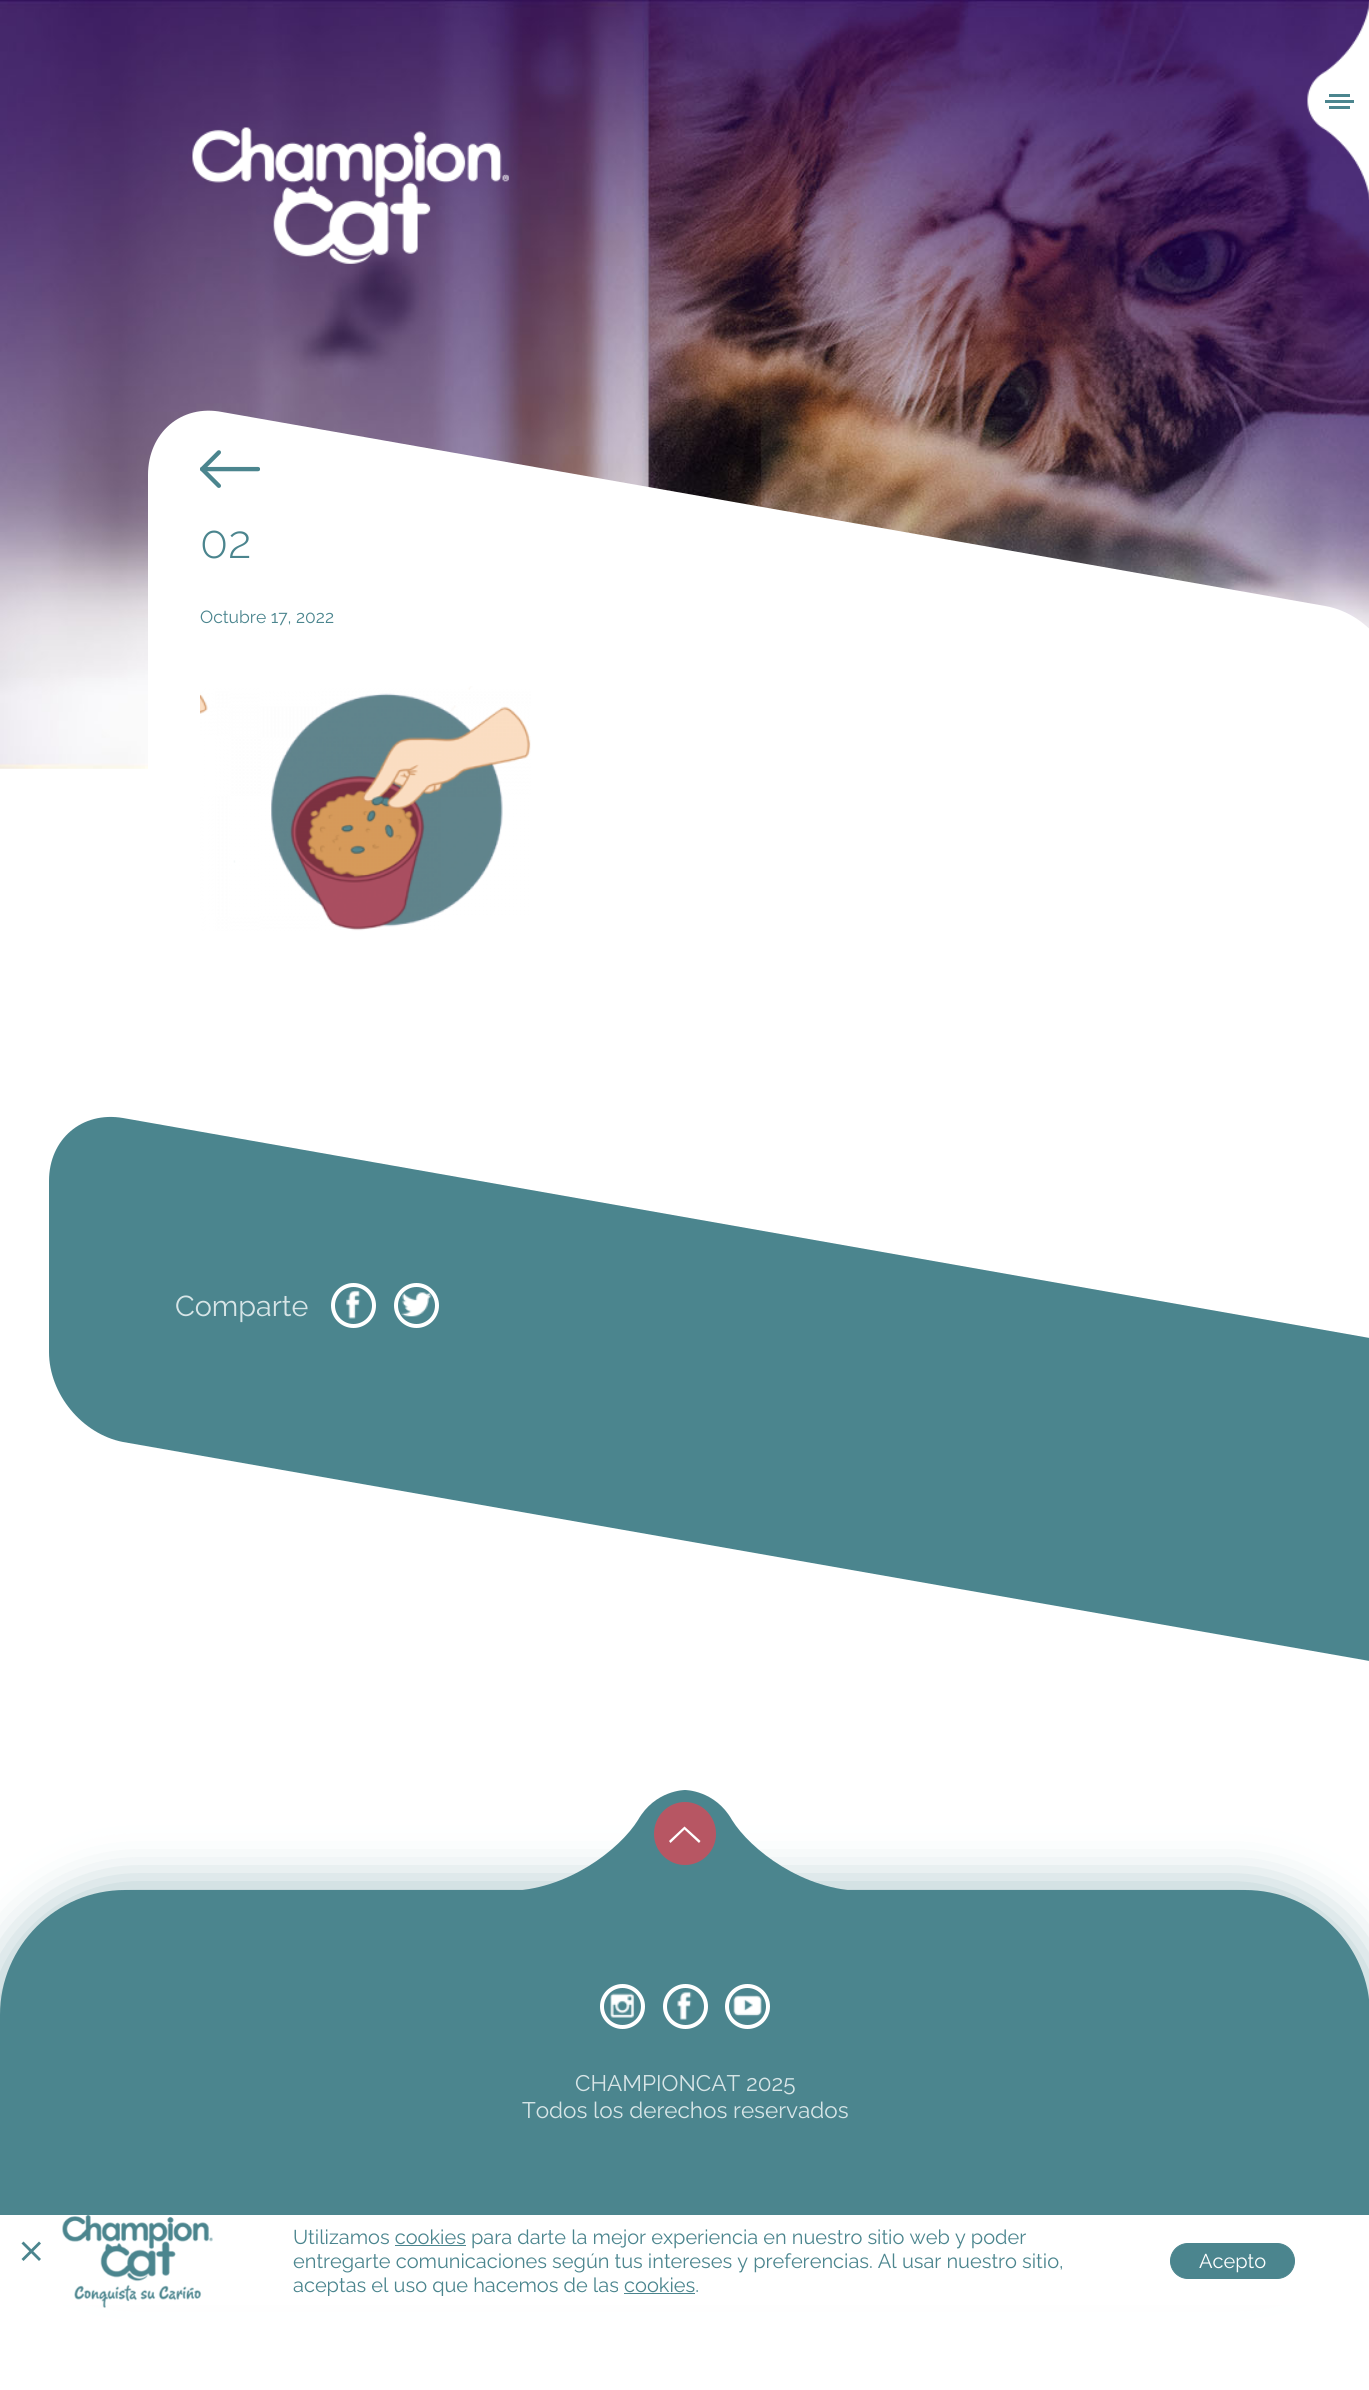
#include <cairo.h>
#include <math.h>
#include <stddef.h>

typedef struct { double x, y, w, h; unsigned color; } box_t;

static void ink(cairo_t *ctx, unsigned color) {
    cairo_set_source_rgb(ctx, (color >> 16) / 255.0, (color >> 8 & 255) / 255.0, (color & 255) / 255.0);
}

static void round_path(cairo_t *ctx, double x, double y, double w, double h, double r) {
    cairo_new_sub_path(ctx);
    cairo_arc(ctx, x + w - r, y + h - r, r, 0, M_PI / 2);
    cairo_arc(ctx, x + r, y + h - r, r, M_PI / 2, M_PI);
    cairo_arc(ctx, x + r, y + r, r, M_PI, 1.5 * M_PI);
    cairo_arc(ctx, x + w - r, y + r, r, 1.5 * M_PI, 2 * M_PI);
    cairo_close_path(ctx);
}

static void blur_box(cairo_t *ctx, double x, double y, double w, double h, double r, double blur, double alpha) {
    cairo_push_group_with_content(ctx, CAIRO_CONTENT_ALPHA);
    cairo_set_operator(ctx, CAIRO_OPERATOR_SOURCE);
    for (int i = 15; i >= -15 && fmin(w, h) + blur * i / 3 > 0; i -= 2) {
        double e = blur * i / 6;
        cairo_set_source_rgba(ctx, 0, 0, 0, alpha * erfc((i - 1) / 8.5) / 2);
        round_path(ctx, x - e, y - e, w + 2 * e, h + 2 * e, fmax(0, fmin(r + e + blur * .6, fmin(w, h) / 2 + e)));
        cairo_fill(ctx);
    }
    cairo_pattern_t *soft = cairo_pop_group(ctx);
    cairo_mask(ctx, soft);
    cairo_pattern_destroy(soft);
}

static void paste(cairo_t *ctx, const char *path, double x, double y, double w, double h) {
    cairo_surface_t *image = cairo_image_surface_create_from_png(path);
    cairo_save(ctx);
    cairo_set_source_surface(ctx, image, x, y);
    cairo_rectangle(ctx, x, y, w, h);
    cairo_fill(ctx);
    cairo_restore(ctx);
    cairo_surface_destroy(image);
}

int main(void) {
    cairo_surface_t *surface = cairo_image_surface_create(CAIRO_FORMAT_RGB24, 1369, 2390);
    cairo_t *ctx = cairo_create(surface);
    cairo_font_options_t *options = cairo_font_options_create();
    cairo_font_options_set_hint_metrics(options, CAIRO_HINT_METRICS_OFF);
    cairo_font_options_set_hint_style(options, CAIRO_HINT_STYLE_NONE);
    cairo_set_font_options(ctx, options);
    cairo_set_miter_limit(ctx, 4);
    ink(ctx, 0xFFFFFF);
    cairo_paint(ctx);
    paste(ctx, "media/1.png", 0, 0, 1369, 769);
    paste(ctx, "media/2.png", 192, 127, 317, 137);
    paste(ctx, "media/3.png", 1307, 1, 62, 199);
    {
        static const box_t items[] = {
            {1325, 100, 29, 3, 0x4B858E},
            {1329, 94, 21, 3, 0x4B858E},
            {1329, 106, 21, 3, 0x4B858E},
        };
        for (size_t i = 0; i < sizeof items / sizeof *items; i++) {
            ink(ctx, items[i].color);
            cairo_rectangle(ctx, items[i].x, items[i].y, items[i].w, items[i].h);
            cairo_fill(ctx);
        }
    }
    ink(ctx, 0xFFFFFF);
    cairo_new_path(ctx);
    cairo_move_to(ctx, 222, 412);
    cairo_line_to(ctx, 1325, 606);
    cairo_curve_to(ctx, 1366, 613, 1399, 653, 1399, 695);
    cairo_line_to(ctx, 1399, 1090);
    cairo_line_to(ctx, 148, 870);
    cairo_line_to(ctx, 148, 475);
    cairo_curve_to(ctx, 148, 433, 181, 404, 222, 412);
    cairo_close_path(ctx);
    cairo_fill(ctx);
    paste(ctx, "media/4.png", 200, 450, 60, 38);
    cairo_select_font_face(ctx, "Raleway Light", CAIRO_FONT_SLANT_NORMAL, CAIRO_FONT_WEIGHT_NORMAL);
    cairo_set_font_size(ctx, 46);
    ink(ctx, 0x4B858E);
    cairo_move_to(ctx, 200, 558);
    cairo_show_text(ctx, "02");
    cairo_select_font_face(ctx, "Raleway", CAIRO_FONT_SLANT_NORMAL, CAIRO_FONT_WEIGHT_NORMAL);
    cairo_set_font_size(ctx, 17.5);
    cairo_move_to(ctx, 200, 623);
    cairo_show_text(ctx, "Octubre 17, 2022");
    paste(ctx, "media/5.png", 200, 686, 331, 245);
    cairo_new_path(ctx);
    cairo_move_to(ctx, 123, 1118);
    cairo_line_to(ctx, 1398, 1343);
    cairo_line_to(ctx, 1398, 1666);
    cairo_line_to(ctx, 123, 1442);
    cairo_curve_to(ctx, 82, 1434, 49, 1394, 49, 1352);
    cairo_line_to(ctx, 49, 1181);
    cairo_curve_to(ctx, 49, 1139, 82, 1111, 123, 1118);
    cairo_close_path(ctx);
    cairo_fill(ctx);
    cairo_set_font_size(ctx, 28.75);
    ink(ctx, 0xD7E5E7);
    cairo_move_to(ctx, 175, 1316);
    cairo_show_text(ctx, "Comparte");
    paste(ctx, "media/6.png", 346, 1290, 15, 29);
    cairo_arc(ctx, 353.5, 1305.5, 20.5, 0, 2 * M_PI);
    ink(ctx, 0xFFFFFF);
    cairo_set_line_width(ctx, 4);
    cairo_stroke(ctx);
    paste(ctx, "media/7.png", 401, 1292, 31, 25);
    cairo_arc(ctx, 416.5, 1305.5, 20.5, 0, 2 * M_PI);
    cairo_stroke(ctx);
    ink(ctx, 0x4B858E);
    blur_box(ctx, -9, 1885, 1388, 375, 134, 24, 0.48);
    ink(ctx, 0x4B858E);
    cairo_new_path(ctx);
    cairo_move_to(ctx, 125, 1890);
    cairo_line_to(ctx, 1245, 1890);
    cairo_curve_to(ctx, 1314, 1890, 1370, 1946, 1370, 2015);
    cairo_line_to(ctx, 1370, 2248);
    cairo_line_to(ctx, 0, 2248);
    cairo_line_to(ctx, 0, 2015);
    cairo_curve_to(ctx, 0, 1946, 56, 1890, 125, 1890);
    cairo_close_path(ctx);
    cairo_fill(ctx);
    cairo_set_fill_rule(ctx, CAIRO_FILL_RULE_EVEN_ODD);
    cairo_new_path(ctx);
    cairo_move_to(ctx, 685, 1790);
    cairo_curve_to(ctx, 685, 1790, 655, 1790, 638, 1820);
    cairo_curve_to(ctx, 620, 1849, 567, 1891, 506, 1891);
    cairo_line_to(ctx, 685, 1891);
    cairo_close_path(ctx);
    cairo_move_to(ctx, 685, 1790);
    cairo_curve_to(ctx, 685, 1790, 715, 1790, 732, 1820);
    cairo_curve_to(ctx, 750, 1849, 803, 1891, 864, 1891);
    cairo_line_to(ctx, 685, 1891);
    cairo_close_path(ctx);
    cairo_fill(ctx);
    ink(ctx, 0xB75663);
    cairo_set_fill_rule(ctx, CAIRO_FILL_RULE_WINDING);
    cairo_new_path(ctx);
    cairo_move_to(ctx, 685, 1865);
    cairo_curve_to(ctx, 702, 1865, 716, 1851, 716, 1834);
    cairo_curve_to(ctx, 716, 1816, 702, 1802, 685, 1802);
    cairo_curve_to(ctx, 668, 1802, 654, 1816, 654, 1834);
    cairo_curve_to(ctx, 654, 1851, 668, 1865, 685, 1865);
    cairo_close_path(ctx);
    cairo_fill(ctx);
    ink(ctx, 0xFFFFFF);
    cairo_new_path(ctx);
    cairo_move_to(ctx, 684.5, 1826.5);
    cairo_line_to(ctx, 700.5, 1841);
    cairo_line_to(ctx, 699, 1843);
    cairo_line_to(ctx, 684.5, 1829.5);
    cairo_line_to(ctx, 670.5, 1843);
    cairo_line_to(ctx, 669, 1841);
    cairo_close_path(ctx);
    cairo_fill(ctx);
    paste(ctx, "media/8.png", 610, 1993, 25, 25);
    cairo_arc(ctx, 622.5, 2006.5, 20.5, 0, 2 * M_PI);
    cairo_stroke(ctx);
    paste(ctx, "media/9.png", 677, 1991, 15, 29);
    cairo_arc(ctx, 685.5, 2006.5, 20.5, 0, 2 * M_PI);
    cairo_stroke(ctx);
    paste(ctx, "media/10.png", 733, 1995, 29, 22);
    cairo_arc(ctx, 747.5, 2006.5, 20.5, 0, 2 * M_PI);
    cairo_stroke(ctx);
    cairo_set_font_size(ctx, 22.5);
    ink(ctx, 0xD7E5E7);
    cairo_move_to(ctx, 575, 2091);
    cairo_show_text(ctx, "CHAMPIONCAT 2025");
    cairo_move_to(ctx, 522, 2118);
    cairo_show_text(ctx, "Todos los derechos reservados");
    ink(ctx, 0xFFFFFF);
    cairo_rectangle(ctx, 0, 2215, 1369, 90);
    cairo_fill(ctx);
    ink(ctx, 0x4B858E);
    cairo_new_path(ctx);
    cairo_move_to(ctx, 23.5, 2241.5);
    cairo_line_to(ctx, 41, 2259);
    cairo_line_to(ctx, 39, 2261);
    cairo_line_to(ctx, 21.5, 2243.5);
    cairo_close_path(ctx);
    cairo_fill(ctx);
    cairo_new_path(ctx);
    cairo_move_to(ctx, 21.5, 2259);
    cairo_line_to(ctx, 39, 2241.5);
    cairo_line_to(ctx, 41, 2243.5);
    cairo_line_to(ctx, 23.5, 2261);
    cairo_close_path(ctx);
    cairo_fill(ctx);
    paste(ctx, "media/11.png", 62, 2215, 151, 93);
    cairo_set_font_size(ctx, 20);
    cairo_move_to(ctx, 293, 2244);
    cairo_show_text(ctx, "Utilizamos cookies para darte la mejor experiencia en nuestro sitio web y poder");
    cairo_rectangle(ctx, 395, 2245, 71, 1);
    cairo_fill(ctx);
    cairo_move_to(ctx, 293, 2268);
    cairo_show_text(ctx, "entregarte comunicaciones según tus intereses y preferencias. Al usar nuestro sitio,");
    cairo_save(ctx);
    cairo_rectangle(ctx, 274, 2225, 822, 71);
    cairo_clip(ctx);
    cairo_move_to(ctx, 293, 2292);
    cairo_show_text(ctx, "aceptas el uso que hacemos de las");
    cairo_restore(ctx);
    cairo_move_to(ctx, 624, 2292);
    cairo_show_text(ctx, "cookies.");
    cairo_rectangle(ctx, 624, 2293, 71, 1);
    cairo_fill(ctx);
    round_path(ctx, 1170.5, 2243.5, 124, 35, 17.5);
    cairo_fill_preserve(ctx);
    cairo_set_line_width(ctx, 1);
    cairo_stroke(ctx);
    ink(ctx, 0xFFFFFF);
    cairo_move_to(ctx, 1199, 2268);
    cairo_show_text(ctx, "Acepto");
    cairo_surface_write_to_png(surface, "image.png");
    cairo_font_options_destroy(options);
    cairo_destroy(ctx);
    cairo_surface_destroy(surface);
    return 0;
}
